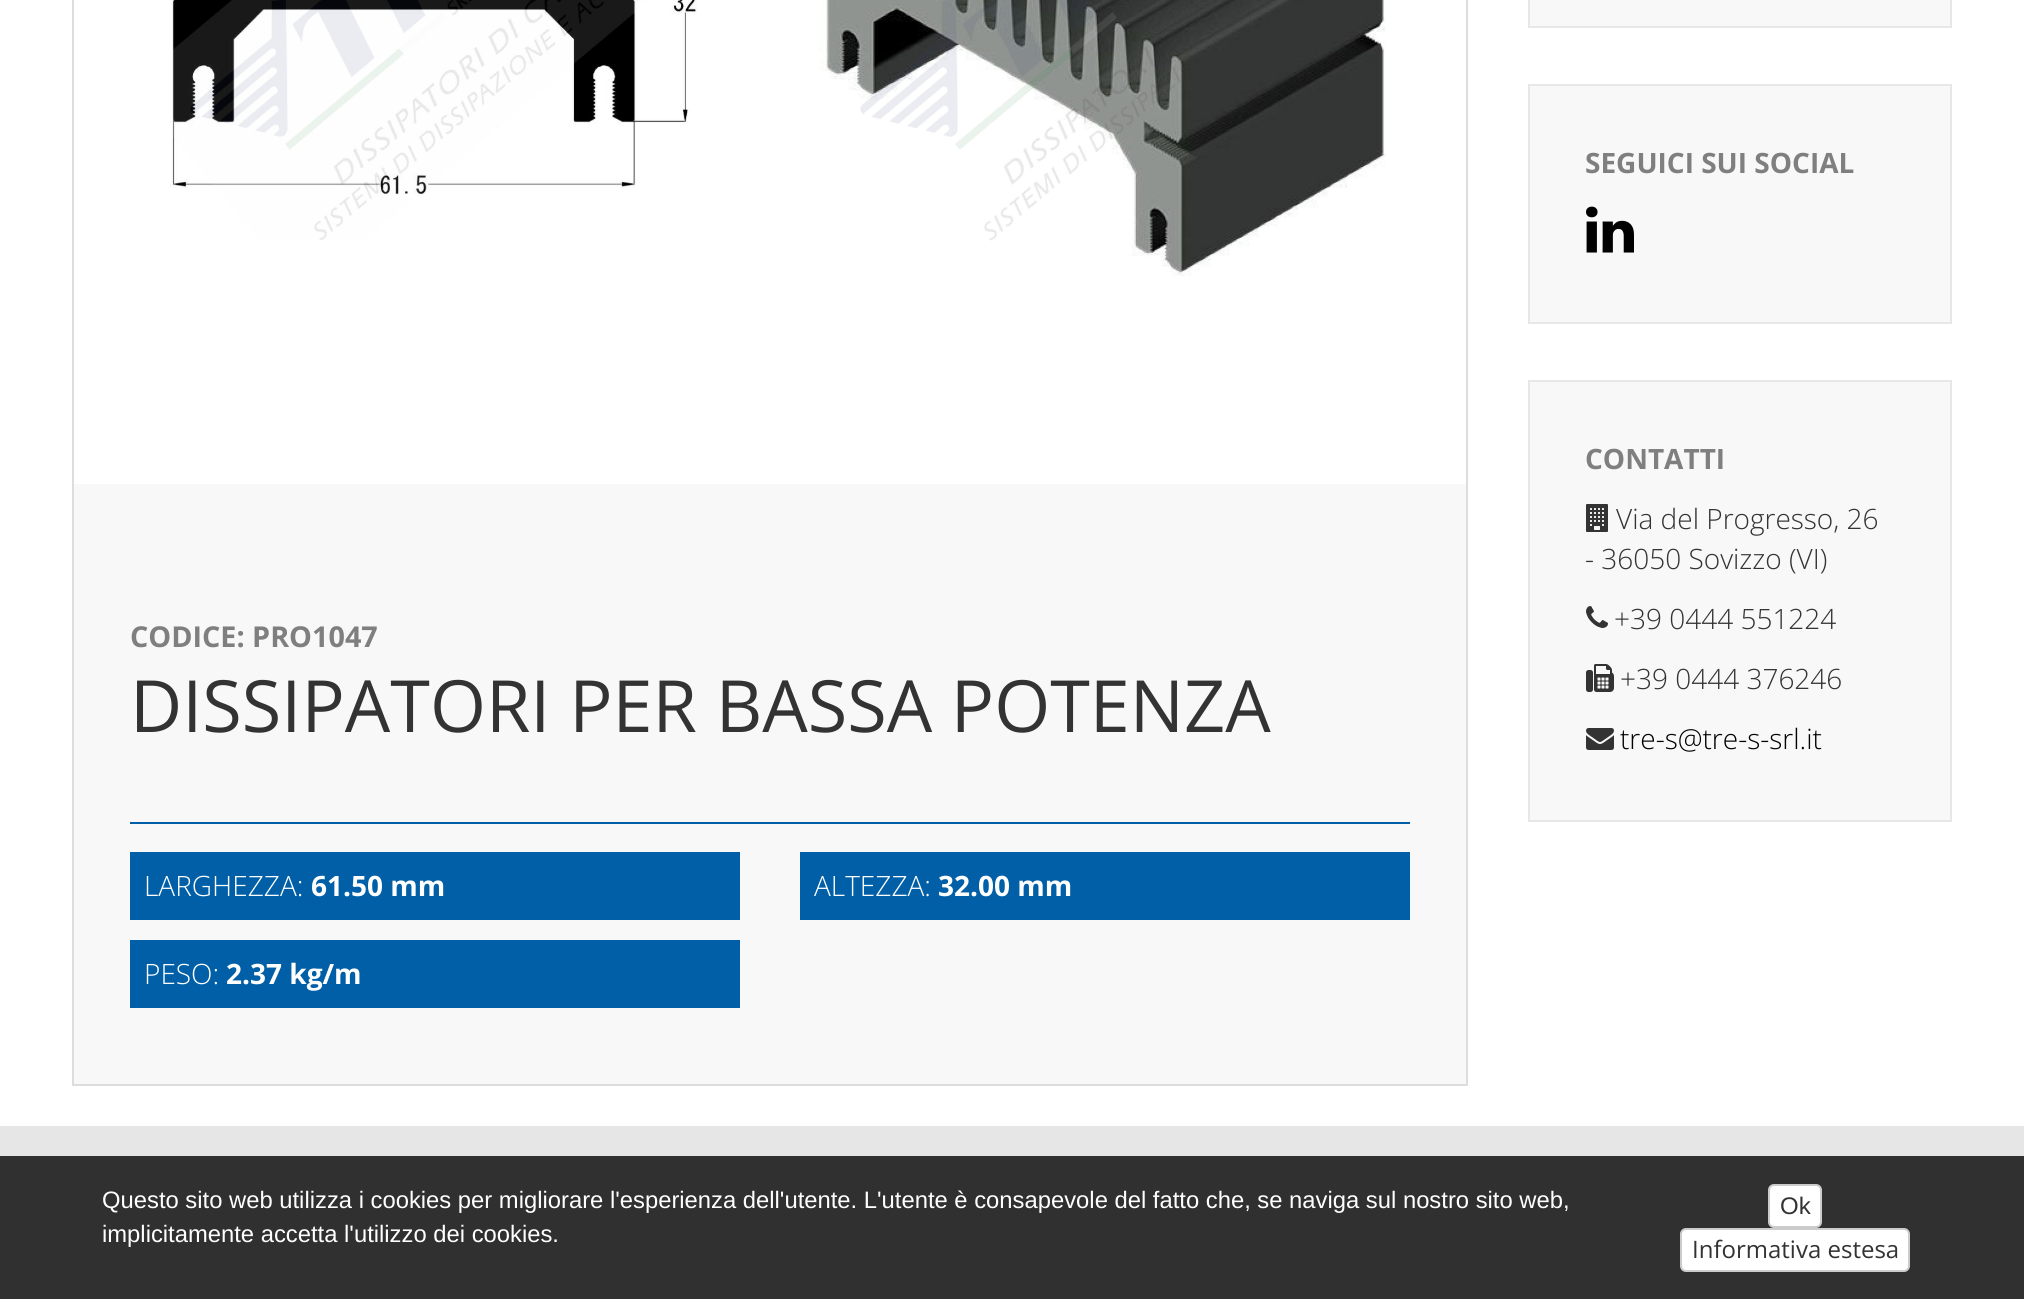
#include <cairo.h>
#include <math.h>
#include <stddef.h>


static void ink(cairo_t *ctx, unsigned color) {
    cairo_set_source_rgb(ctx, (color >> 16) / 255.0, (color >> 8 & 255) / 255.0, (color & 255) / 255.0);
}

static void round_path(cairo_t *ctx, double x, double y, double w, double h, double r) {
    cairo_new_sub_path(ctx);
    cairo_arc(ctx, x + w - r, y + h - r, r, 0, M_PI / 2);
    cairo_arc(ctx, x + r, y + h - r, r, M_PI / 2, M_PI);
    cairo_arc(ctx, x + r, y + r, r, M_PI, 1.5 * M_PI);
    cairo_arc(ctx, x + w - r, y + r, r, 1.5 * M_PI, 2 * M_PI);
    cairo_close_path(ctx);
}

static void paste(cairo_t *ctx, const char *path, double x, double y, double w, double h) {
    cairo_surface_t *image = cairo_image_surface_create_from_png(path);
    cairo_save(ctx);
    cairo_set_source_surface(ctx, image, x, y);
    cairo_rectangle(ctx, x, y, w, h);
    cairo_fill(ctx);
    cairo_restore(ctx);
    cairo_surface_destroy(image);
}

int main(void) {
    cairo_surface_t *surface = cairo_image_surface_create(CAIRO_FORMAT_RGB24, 2024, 1299);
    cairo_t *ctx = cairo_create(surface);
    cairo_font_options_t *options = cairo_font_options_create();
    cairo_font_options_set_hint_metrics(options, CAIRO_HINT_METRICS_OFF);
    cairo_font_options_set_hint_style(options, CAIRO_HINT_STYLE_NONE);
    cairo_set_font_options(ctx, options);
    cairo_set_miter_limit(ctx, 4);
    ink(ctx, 0xFFFFFF);
    cairo_paint(ctx);
    ink(ctx, 0xF8F8F8);
    cairo_rectangle(ctx, 1529, -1, 422, 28);
    cairo_fill_preserve(ctx);
    ink(ctx, 0xE7E7E7);
    cairo_stroke(ctx);
    ink(ctx, 0xF8F8F8);
    cairo_rectangle(ctx, 1529, 85, 422, 238);
    cairo_fill_preserve(ctx);
    ink(ctx, 0xE7E7E7);
    cairo_stroke(ctx);
    cairo_select_font_face(ctx, "Open Sans", CAIRO_FONT_SLANT_NORMAL, CAIRO_FONT_WEIGHT_BOLD);
    cairo_set_font_size(ctx, 28);
    ink(ctx, 0x7F7F7F);
    cairo_move_to(ctx, 1585, 173);
    cairo_show_text(ctx, "SEGUICI SUI SOCIAL");
    paste(ctx, "media/1.png", 1586, 206, 48, 47);
    ink(ctx, 0xF8F8F8);
    cairo_rectangle(ctx, 1529, 381, 422, 440);
    cairo_fill_preserve(ctx);
    ink(ctx, 0xE7E7E7);
    cairo_stroke(ctx);
    ink(ctx, 0x7F7F7F);
    cairo_move_to(ctx, 1585, 469);
    cairo_show_text(ctx, "CONTATTI");
    paste(ctx, "media/2.png", 1586, 504, 22, 28);
    cairo_select_font_face(ctx, "Open Sans Light", CAIRO_FONT_SLANT_NORMAL, CAIRO_FONT_WEIGHT_NORMAL);
    ink(ctx, 0x333333);
    cairo_move_to(ctx, 1616, 529);
    cairo_show_text(ctx, "Via del Progresso, 26");
    cairo_move_to(ctx, 1585, 569);
    cairo_show_text(ctx, "- 36050 Sovizzo (VI)");
    paste(ctx, "media/3.png", 1586, 606, 22, 22);
    cairo_move_to(ctx, 1614, 629);
    cairo_show_text(ctx, "+39 0444 551224");
    paste(ctx, "media/4.png", 1586, 664, 28, 28);
    cairo_move_to(ctx, 1620, 689);
    cairo_show_text(ctx, "+39 0444 376246");
    paste(ctx, "media/5.png", 1586, 728, 28, 22);
    ink(ctx, 0x000000);
    cairo_move_to(ctx, 1620, 749);
    cairo_show_text(ctx, "tre-s@tre-s-srl.it");
    cairo_rectangle(ctx, 73, -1, 1394, 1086);
    ink(ctx, 0xDDDDDD);
    cairo_stroke(ctx);
    paste(ctx, "media/6.png", 170, 0, 528, 240);
    paste(ctx, "media/7.png", 819, 0, 567, 276);
    ink(ctx, 0xF8F8F8);
    cairo_rectangle(ctx, 74, 484, 1392, 600);
    cairo_fill(ctx);
    cairo_select_font_face(ctx, "Open Sans", CAIRO_FONT_SLANT_NORMAL, CAIRO_FONT_WEIGHT_BOLD);
    cairo_set_font_size(ctx, 28.75);
    ink(ctx, 0x7F7F7F);
    cairo_move_to(ctx, 130, 647);
    cairo_show_text(ctx, "CODICE: PRO1047");
    cairo_select_font_face(ctx, "Open Sans", CAIRO_FONT_SLANT_NORMAL, CAIRO_FONT_WEIGHT_NORMAL);
    cairo_set_font_size(ctx, 72);
    ink(ctx, 0x333333);
    cairo_move_to(ctx, 130, 732);
    cairo_show_text(ctx, "DISSIPATORI PER BASSA POTENZA");
    ink(ctx, 0x005FA6);
    cairo_rectangle(ctx, 130, 822, 1280, 2);
    cairo_fill(ctx);
    cairo_rectangle(ctx, 130, 852, 610, 68);
    cairo_fill(ctx);
    cairo_select_font_face(ctx, "Open Sans Light", CAIRO_FONT_SLANT_NORMAL, CAIRO_FONT_WEIGHT_NORMAL);
    cairo_set_font_size(ctx, 28);
    ink(ctx, 0xFFFFFF);
    cairo_move_to(ctx, 144, 896);
    cairo_show_text(ctx, "LARGHEZZA:");
    cairo_select_font_face(ctx, "Open Sans", CAIRO_FONT_SLANT_NORMAL, CAIRO_FONT_WEIGHT_BOLD);
    cairo_move_to(ctx, 311, 896);
    cairo_show_text(ctx, "61.50 mm");
    ink(ctx, 0x005FA6);
    cairo_rectangle(ctx, 130, 940, 610, 68);
    cairo_fill(ctx);
    cairo_select_font_face(ctx, "Open Sans Light", CAIRO_FONT_SLANT_NORMAL, CAIRO_FONT_WEIGHT_NORMAL);
    ink(ctx, 0xFFFFFF);
    cairo_move_to(ctx, 144, 984);
    cairo_show_text(ctx, "PESO:");
    cairo_select_font_face(ctx, "Open Sans", CAIRO_FONT_SLANT_NORMAL, CAIRO_FONT_WEIGHT_BOLD);
    cairo_move_to(ctx, 226, 984);
    cairo_show_text(ctx, "2.37 kg/m");
    ink(ctx, 0x005FA6);
    cairo_rectangle(ctx, 800, 852, 610, 68);
    cairo_fill(ctx);
    cairo_select_font_face(ctx, "Open Sans Light", CAIRO_FONT_SLANT_NORMAL, CAIRO_FONT_WEIGHT_NORMAL);
    ink(ctx, 0xFFFFFF);
    cairo_move_to(ctx, 814, 896);
    cairo_show_text(ctx, "ALTEZZA:");
    cairo_select_font_face(ctx, "Open Sans", CAIRO_FONT_SLANT_NORMAL, CAIRO_FONT_WEIGHT_BOLD);
    cairo_move_to(ctx, 938, 896);
    cairo_show_text(ctx, "32.00 mm");
    ink(ctx, 0xE6E6E6);
    cairo_rectangle(ctx, 0, 1126, 2024, 30);
    cairo_fill(ctx);
    ink(ctx, 0x303030);
    cairo_rectangle(ctx, 0, 1156, 2024, 143);
    cairo_fill(ctx);
    cairo_select_font_face(ctx, "Liberation Sans", CAIRO_FONT_SLANT_NORMAL, CAIRO_FONT_WEIGHT_NORMAL);
    cairo_set_font_size(ctx, 23.8);
    ink(ctx, 0xFFFFFF);
    cairo_move_to(ctx, 102, 1208);
    cairo_show_text(ctx, "Questo sito web utilizza i cookies per migliorare l'esperienza dell'utente. L'utente è consapevole del fatto che, se naviga sul nostro sito web,");
    cairo_move_to(ctx, 102, 1242);
    cairo_show_text(ctx, "implicitamente accetta l'utilizzo dei cookies.");
    round_path(ctx, 1769, 1185, 52, 42, 5);
    cairo_fill_preserve(ctx);
    ink(ctx, 0xCCCCCC);
    cairo_stroke(ctx);
    cairo_set_font_size(ctx, 24);
    ink(ctx, 0x333333);
    cairo_move_to(ctx, 1780, 1214);
    cairo_show_text(ctx, "Ok");
    ink(ctx, 0xFFFFFF);
    round_path(ctx, 1681, 1229, 228, 42, 5);
    cairo_fill_preserve(ctx);
    ink(ctx, 0xCCCCCC);
    cairo_stroke(ctx);
    cairo_select_font_face(ctx, "Open Sans", CAIRO_FONT_SLANT_NORMAL, CAIRO_FONT_WEIGHT_NORMAL);
    ink(ctx, 0x333333);
    cairo_move_to(ctx, 1692, 1258);
    cairo_show_text(ctx, "Informativa estesa");
    cairo_surface_write_to_png(surface, "image.png");
    cairo_font_options_destroy(options);
    cairo_destroy(ctx);
    cairo_surface_destroy(surface);
    return 0;
}
